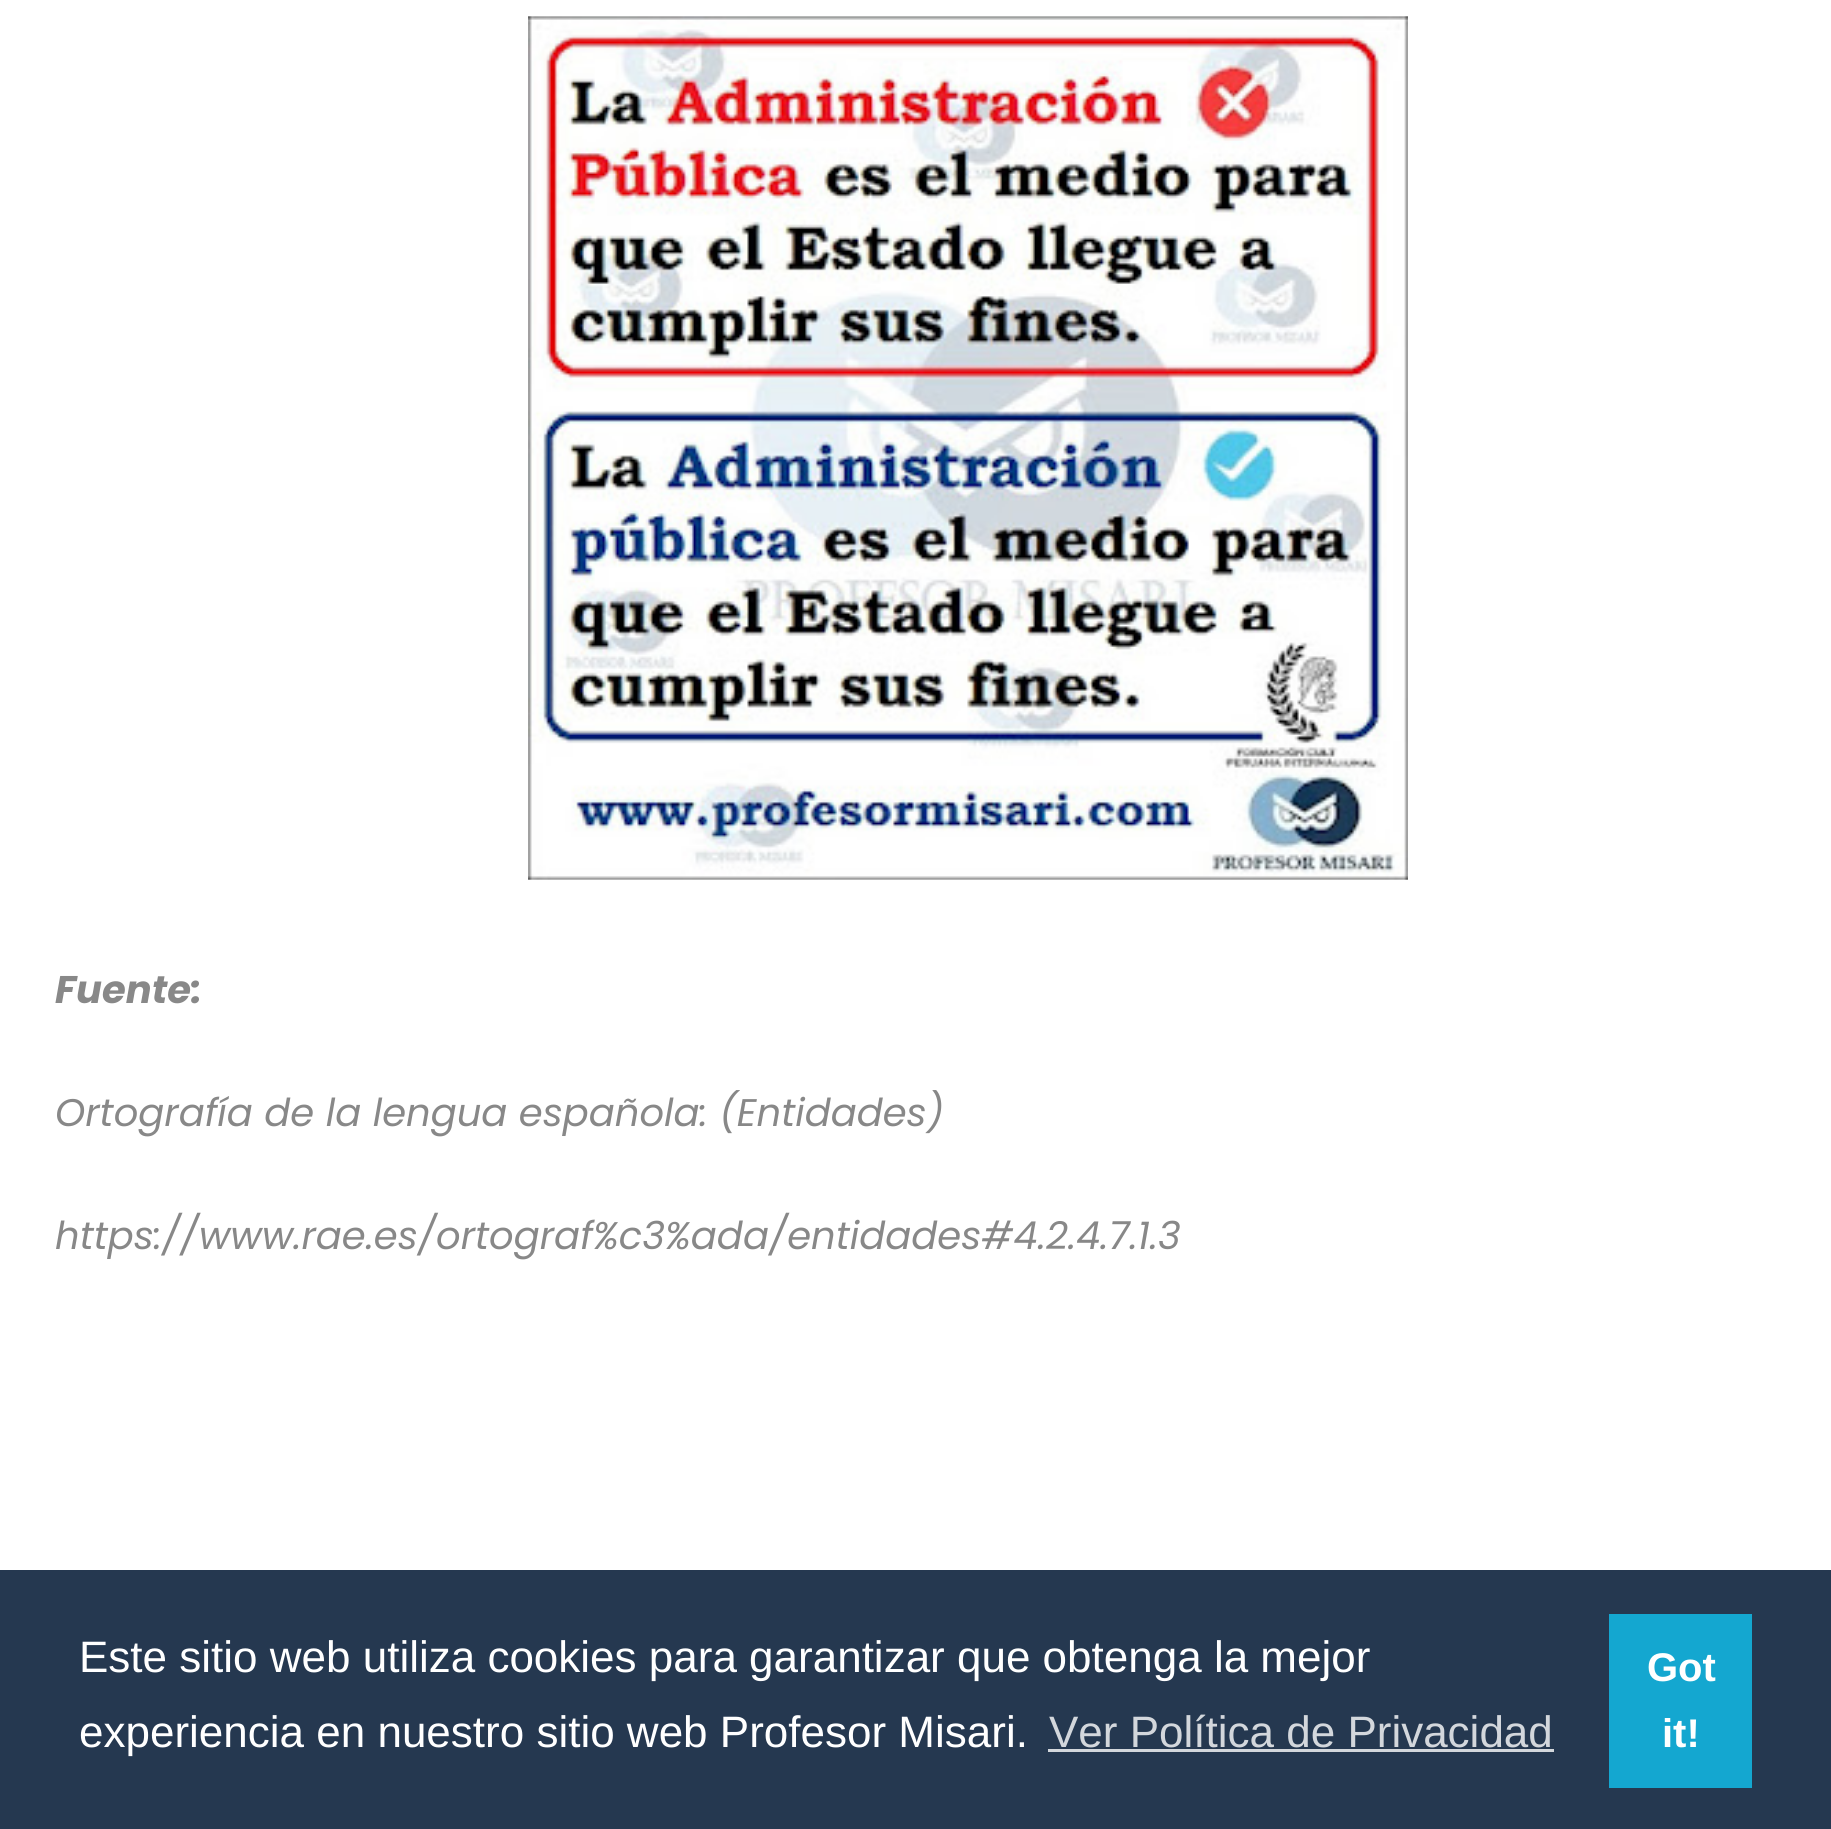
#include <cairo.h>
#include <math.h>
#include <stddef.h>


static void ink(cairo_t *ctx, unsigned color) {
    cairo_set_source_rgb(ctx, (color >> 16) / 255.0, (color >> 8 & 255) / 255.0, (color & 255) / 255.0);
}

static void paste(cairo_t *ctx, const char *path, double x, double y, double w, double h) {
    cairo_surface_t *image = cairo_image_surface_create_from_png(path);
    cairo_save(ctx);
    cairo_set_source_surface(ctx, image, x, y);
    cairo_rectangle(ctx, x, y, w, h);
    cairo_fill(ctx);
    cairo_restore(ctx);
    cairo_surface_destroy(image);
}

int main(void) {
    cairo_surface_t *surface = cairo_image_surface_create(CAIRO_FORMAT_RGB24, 1831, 1829);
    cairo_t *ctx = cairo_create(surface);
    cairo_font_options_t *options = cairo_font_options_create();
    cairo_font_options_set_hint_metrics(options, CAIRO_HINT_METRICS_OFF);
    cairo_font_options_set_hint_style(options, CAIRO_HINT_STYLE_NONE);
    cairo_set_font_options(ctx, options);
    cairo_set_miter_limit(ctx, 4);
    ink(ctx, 0xFFFFFF);
    cairo_paint(ctx);
    paste(ctx, "media/1.png", 528, 16, 880, 864);
    cairo_select_font_face(ctx, "Poppins", CAIRO_FONT_SLANT_ITALIC, CAIRO_FONT_WEIGHT_BOLD);
    cairo_set_font_size(ctx, 38.5);
    ink(ctx, 0x888888);
    cairo_move_to(ctx, 55, 1003);
    cairo_show_text(ctx, "Fuente:");
    cairo_select_font_face(ctx, "Poppins", CAIRO_FONT_SLANT_ITALIC, CAIRO_FONT_WEIGHT_NORMAL);
    cairo_move_to(ctx, 55, 1126);
    cairo_show_text(ctx, "Ortografía de la lengua española: (Entidades)");
    cairo_move_to(ctx, 55, 1249);
    cairo_show_text(ctx, "https://www.rae.es/ortograf%c3%ada/entidades#4.2.4.7.1.3");
    ink(ctx, 0x253850);
    cairo_rectangle(ctx, 0, 1570, 1831, 259);
    cairo_fill(ctx);
    cairo_select_font_face(ctx, "Liberation Sans", CAIRO_FONT_SLANT_NORMAL, CAIRO_FONT_WEIGHT_NORMAL);
    cairo_set_font_size(ctx, 44);
    ink(ctx, 0xFFFFFF);
    cairo_move_to(ctx, 79, 1672);
    cairo_show_text(ctx, "Este sitio web utiliza cookies para garantizar que obtenga la mejor");
    cairo_move_to(ctx, 79, 1747);
    cairo_show_text(ctx, "experiencia en nuestro sitio web Profesor Misari.");
    ink(ctx, 0xD3D7DC);
    cairo_move_to(ctx, 1049, 1747);
    cairo_show_text(ctx, "Ver Política de Privacidad");
    cairo_rectangle(ctx, 1048, 1749, 506, 3);
    cairo_fill(ctx);
    ink(ctx, 0x14A7D0);
    cairo_rectangle(ctx, 1609, 1614, 143, 174);
    cairo_fill(ctx);
    cairo_select_font_face(ctx, "Liberation Sans", CAIRO_FONT_SLANT_NORMAL, CAIRO_FONT_WEIGHT_BOLD);
    cairo_set_font_size(ctx, 40);
    ink(ctx, 0xFFFFFF);
    cairo_move_to(ctx, 1647, 1681);
    cairo_show_text(ctx, "Got");
    cairo_move_to(ctx, 1662, 1747);
    cairo_show_text(ctx, "it!");
    cairo_surface_write_to_png(surface, "image.png");
    cairo_font_options_destroy(options);
    cairo_destroy(ctx);
    cairo_surface_destroy(surface);
    return 0;
}
